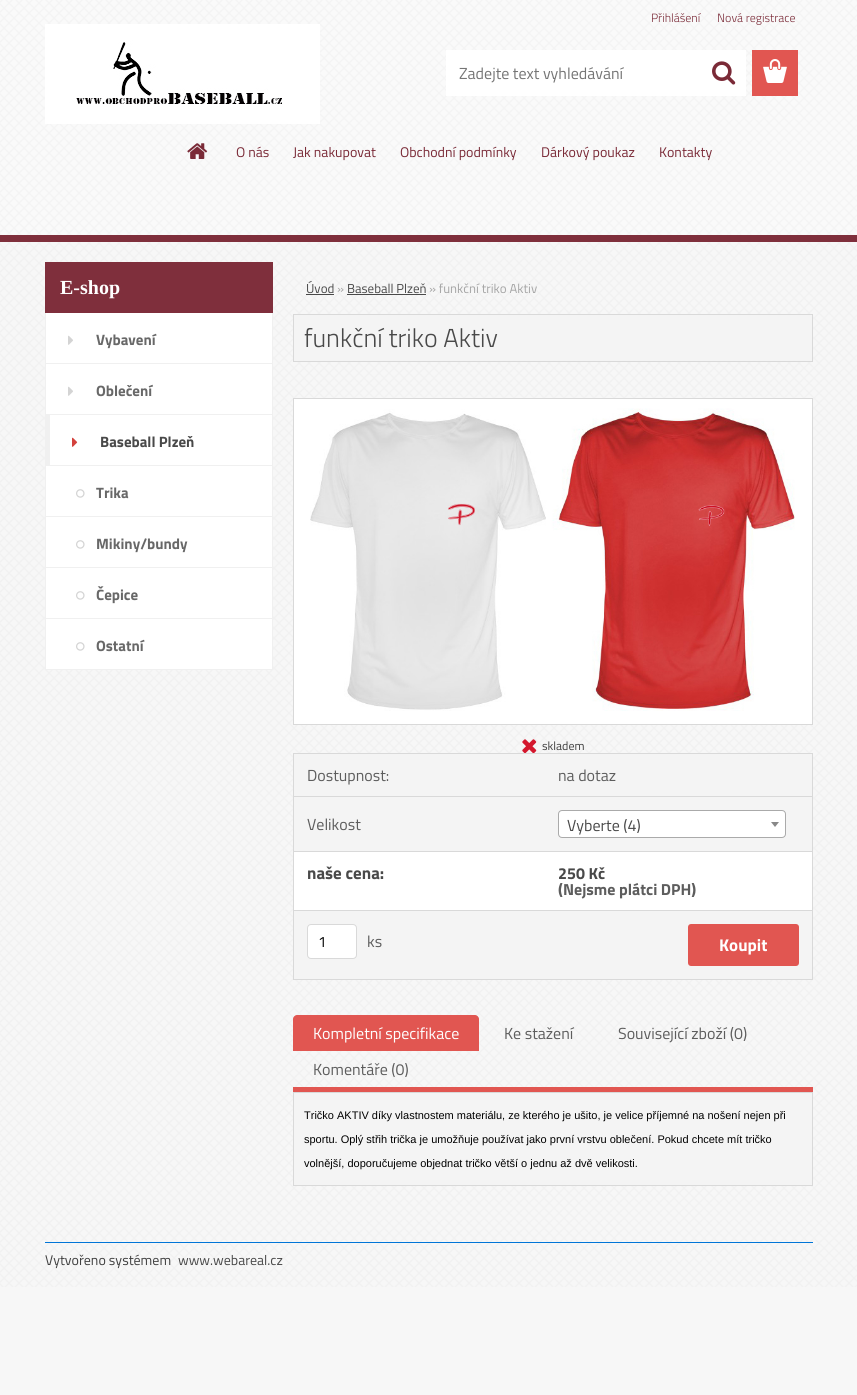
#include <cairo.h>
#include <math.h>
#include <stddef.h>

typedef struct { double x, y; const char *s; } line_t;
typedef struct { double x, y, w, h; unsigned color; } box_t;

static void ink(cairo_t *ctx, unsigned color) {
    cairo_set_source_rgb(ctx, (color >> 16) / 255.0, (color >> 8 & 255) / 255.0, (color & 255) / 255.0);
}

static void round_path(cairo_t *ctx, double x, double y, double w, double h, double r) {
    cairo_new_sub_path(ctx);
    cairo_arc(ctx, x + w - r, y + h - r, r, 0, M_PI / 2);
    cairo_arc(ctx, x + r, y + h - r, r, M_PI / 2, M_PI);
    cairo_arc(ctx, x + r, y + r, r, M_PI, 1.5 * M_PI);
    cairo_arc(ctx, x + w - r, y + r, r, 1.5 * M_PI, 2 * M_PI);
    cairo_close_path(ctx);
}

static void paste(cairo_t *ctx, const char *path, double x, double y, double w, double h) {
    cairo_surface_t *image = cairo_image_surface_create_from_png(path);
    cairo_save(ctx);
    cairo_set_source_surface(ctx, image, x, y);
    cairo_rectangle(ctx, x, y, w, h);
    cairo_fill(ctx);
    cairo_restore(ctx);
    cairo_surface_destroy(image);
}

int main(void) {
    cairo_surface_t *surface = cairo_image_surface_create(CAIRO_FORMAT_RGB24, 857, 1395);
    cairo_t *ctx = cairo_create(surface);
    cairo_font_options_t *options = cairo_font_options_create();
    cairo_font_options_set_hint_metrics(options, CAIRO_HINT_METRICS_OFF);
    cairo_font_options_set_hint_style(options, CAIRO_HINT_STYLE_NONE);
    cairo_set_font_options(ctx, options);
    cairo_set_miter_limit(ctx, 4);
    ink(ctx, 0xF7F7F7);
    cairo_paint(ctx);
    paste(ctx, "media/1.png", 0, 242, 857, 1045);
    ink(ctx, 0xFAFAFA);
    cairo_rectangle(ctx, 0, 0, 857, 235);
    cairo_fill(ctx);
    paste(ctx, "media/8.png", 0, 0, 857, 235);
    cairo_select_font_face(ctx, "Titillium Web Light", CAIRO_FONT_SLANT_NORMAL, CAIRO_FONT_WEIGHT_NORMAL);
    cairo_set_font_size(ctx, 12);
    ink(ctx, 0x7A2A37);
    cairo_move_to(ctx, 651, 22);
    cairo_show_text(ctx, "Přihlášení");
    cairo_move_to(ctx, 717, 22);
    cairo_show_text(ctx, "Nová registrace");
    ink(ctx, 0xE15651);
    cairo_rectangle(ctx, 752, 50, 46, 46);
    cairo_fill(ctx);
    paste(ctx, "media/2.png", 763, 59, 24, 24);
    ink(ctx, 0x7F2F3C);
    cairo_rectangle(ctx, 45, 262, 228, 51);
    cairo_fill(ctx);
    cairo_select_font_face(ctx, "Liberation Serif", CAIRO_FONT_SLANT_NORMAL, CAIRO_FONT_WEIGHT_BOLD);
    cairo_set_font_size(ctx, 20);
    ink(ctx, 0xFFFFFF);
    cairo_move_to(ctx, 60, 294);
    cairo_show_text(ctx, "E-shop");
    {
        static const box_t items[] = {
            {46, 313, 226, 50, 0xFFFFFF},
            {272, 313, 1, 357, 0xF0F0F0},
            {45, 363, 228, 1, 0xF0F0F0},
            {45, 313, 1, 51, 0xF0F0F0},
        };
        for (size_t i = 0; i < sizeof items / sizeof *items; i++) {
            ink(ctx, items[i].color);
            cairo_rectangle(ctx, items[i].x, items[i].y, items[i].w, items[i].h);
            cairo_fill(ctx);
        }
    }
    paste(ctx, "media/3.png", 68, 335, 5, 10);
    cairo_select_font_face(ctx, "Titillium Web", CAIRO_FONT_SLANT_NORMAL, CAIRO_FONT_WEIGHT_BOLD);
    cairo_set_font_size(ctx, 15);
    ink(ctx, 0x686868);
    cairo_move_to(ctx, 96, 345);
    cairo_show_text(ctx, "Vybavení");
    {
        static const box_t items[] = {
            {46, 364, 226, 50, 0xFFFFFF},
            {45, 414, 228, 1, 0xF0F0F0},
            {45, 364, 1, 51, 0xF0F0F0},
        };
        for (size_t i = 0; i < sizeof items / sizeof *items; i++) {
            ink(ctx, items[i].color);
            cairo_rectangle(ctx, items[i].x, items[i].y, items[i].w, items[i].h);
            cairo_fill(ctx);
        }
    }
    paste(ctx, "media/3.png", 68, 386, 5, 10);
    ink(ctx, 0x686868);
    cairo_move_to(ctx, 96, 396);
    cairo_show_text(ctx, "Oblečení");
    {
        static const box_t items[] = {
            {50, 415, 222, 50, 0xFFFFFF},
            {45, 465, 228, 1, 0xF0F0F0},
            {45, 415, 5, 51, 0xF0F0F0},
        };
        for (size_t i = 0; i < sizeof items / sizeof *items; i++) {
            ink(ctx, items[i].color);
            cairo_rectangle(ctx, items[i].x, items[i].y, items[i].w, items[i].h);
            cairo_fill(ctx);
        }
    }
    paste(ctx, "media/4.png", 72, 437, 6, 10);
    ink(ctx, 0x494949);
    cairo_move_to(ctx, 100, 447);
    cairo_show_text(ctx, "Baseball Plzeň");
    {
        static const box_t items[] = {
            {46, 466, 226, 50, 0xFFFFFF},
            {45, 516, 228, 1, 0xF0F0F0},
            {45, 466, 1, 51, 0xF0F0F0},
        };
        for (size_t i = 0; i < sizeof items / sizeof *items; i++) {
            ink(ctx, items[i].color);
            cairo_rectangle(ctx, items[i].x, items[i].y, items[i].w, items[i].h);
            cairo_fill(ctx);
        }
    }
    paste(ctx, "media/5.png", 76, 489, 9, 9);
    ink(ctx, 0x686868);
    cairo_move_to(ctx, 96, 498);
    cairo_show_text(ctx, "Trika");
    {
        static const box_t items[] = {
            {46, 517, 226, 50, 0xFFFFFF},
            {45, 567, 228, 1, 0xF0F0F0},
            {45, 517, 1, 51, 0xF0F0F0},
        };
        for (size_t i = 0; i < sizeof items / sizeof *items; i++) {
            ink(ctx, items[i].color);
            cairo_rectangle(ctx, items[i].x, items[i].y, items[i].w, items[i].h);
            cairo_fill(ctx);
        }
    }
    paste(ctx, "media/5.png", 76, 540, 9, 9);
    ink(ctx, 0x686868);
    cairo_move_to(ctx, 96, 549);
    cairo_show_text(ctx, "Mikiny/bundy");
    {
        static const box_t items[] = {
            {46, 568, 226, 50, 0xFFFFFF},
            {45, 618, 228, 1, 0xF0F0F0},
            {45, 568, 1, 51, 0xF0F0F0},
        };
        for (size_t i = 0; i < sizeof items / sizeof *items; i++) {
            ink(ctx, items[i].color);
            cairo_rectangle(ctx, items[i].x, items[i].y, items[i].w, items[i].h);
            cairo_fill(ctx);
        }
    }
    paste(ctx, "media/5.png", 76, 591, 9, 9);
    ink(ctx, 0x686868);
    cairo_move_to(ctx, 96, 600);
    cairo_show_text(ctx, "Čepice");
    {
        static const box_t items[] = {
            {46, 619, 226, 50, 0xFFFFFF},
            {45, 669, 228, 1, 0xF0F0F0},
            {45, 619, 1, 51, 0xF0F0F0},
        };
        for (size_t i = 0; i < sizeof items / sizeof *items; i++) {
            ink(ctx, items[i].color);
            cairo_rectangle(ctx, items[i].x, items[i].y, items[i].w, items[i].h);
            cairo_fill(ctx);
        }
    }
    paste(ctx, "media/5.png", 76, 642, 9, 9);
    ink(ctx, 0x686868);
    cairo_move_to(ctx, 96, 651);
    cairo_show_text(ctx, "Ostatní");
    cairo_select_font_face(ctx, "Titillium Web", CAIRO_FONT_SLANT_NORMAL, CAIRO_FONT_WEIGHT_NORMAL);
    cairo_set_font_size(ctx, 13);
    ink(ctx, 0x494949);
    cairo_move_to(ctx, 306, 293);
    cairo_show_text(ctx, "Úvod");
    cairo_set_source_rgba(ctx, 0, 0, 0, 0.7);
    cairo_rectangle(ctx, 306, 294, 28, 1);
    cairo_fill(ctx);
    ink(ctx, 0xA5A5A5);
    cairo_move_to(ctx, 337, 293);
    cairo_show_text(ctx, "»");
    ink(ctx, 0x494949);
    cairo_move_to(ctx, 347, 293);
    cairo_show_text(ctx, "Baseball Plzeň");
    cairo_set_source_rgba(ctx, 0, 0, 0, 0.7);
    cairo_rectangle(ctx, 347, 294, 79, 1);
    cairo_fill(ctx);
    ink(ctx, 0xA5A5A5);
    cairo_move_to(ctx, 429, 293);
    cairo_show_text(ctx, "» funkční triko Aktiv");
    ink(ctx, 0xF4F4F4);
    cairo_rectangle(ctx, 293.5, 314.5, 519, 47);
    cairo_fill_preserve(ctx);
    ink(ctx, 0xD9D9D9);
    cairo_set_line_width(ctx, 1);
    cairo_stroke(ctx);
    cairo_select_font_face(ctx, "Titillium Web Light", CAIRO_FONT_SLANT_NORMAL, CAIRO_FONT_WEIGHT_NORMAL);
    cairo_set_font_size(ctx, 26);
    ink(ctx, 0x494949);
    cairo_move_to(ctx, 304, 347);
    cairo_show_text(ctx, "funkční triko Aktiv");
    cairo_rectangle(ctx, 293.5, 398.5, 519, 326);
    ink(ctx, 0xD9D9D9);
    cairo_stroke(ctx);
    ink(ctx, 0xFFFFFF);
    cairo_rectangle(ctx, 294, 399, 518, 325);
    cairo_fill(ctx);
    paste(ctx, "media/6.png", 310, 408, 485, 303);
    paste(ctx, "media/7.png", 522, 739, 15, 14);
    cairo_select_font_face(ctx, "Titillium Web", CAIRO_FONT_SLANT_NORMAL, CAIRO_FONT_WEIGHT_NORMAL);
    cairo_set_font_size(ctx, 12);
    ink(ctx, 0x3F3F3F);
    cairo_move_to(ctx, 542, 750);
    cairo_show_text(ctx, "skladem");
    {
        static const box_t items[] = {
            {294, 852, 518, 58, 0xFFFFFF},
            {293, 753, 520, 1, 0xD9D9D9},
            {812, 753, 1, 227, 0xD9D9D9},
            {293, 979, 520, 1, 0xD9D9D9},
            {293, 753, 1, 227, 0xD9D9D9},
            {294, 754, 518, 42, 0xF4F4F4},
        };
        for (size_t i = 0; i < sizeof items / sizeof *items; i++) {
            ink(ctx, items[i].color);
            cairo_rectangle(ctx, items[i].x, items[i].y, items[i].w, items[i].h);
            cairo_fill(ctx);
        }
    }
    cairo_set_font_size(ctx, 16);
    ink(ctx, 0x5D5D5D);
    cairo_move_to(ctx, 307, 781);
    cairo_show_text(ctx, "Dostupnost:");
    cairo_move_to(ctx, 558, 781);
    cairo_show_text(ctx, "na dotaz");
    ink(ctx, 0xF4F4F4);
    cairo_rectangle(ctx, 294, 797, 518, 54);
    cairo_fill(ctx);
    ink(ctx, 0xD9D9D9);
    cairo_rectangle(ctx, 293, 796, 520, 1);
    cairo_fill(ctx);
    ink(ctx, 0x5D5D5D);
    cairo_move_to(ctx, 307, 830);
    cairo_show_text(ctx, "Velikost");
    ink(ctx, 0xFFFFFF);
    round_path(ctx, 558.5, 810.5, 227, 27, 3.5);
    cairo_fill_preserve(ctx);
    ink(ctx, 0xAAAAAA);
    cairo_stroke(ctx);
    ink(ctx, 0x494949);
    cairo_move_to(ctx, 567, 831);
    cairo_show_text(ctx, "Vyberte (4)");
    ink(ctx, 0x888888);
    cairo_new_path(ctx);
    cairo_move_to(ctx, 771, 822);
    cairo_line_to(ctx, 779, 822);
    cairo_line_to(ctx, 775, 827);
    cairo_close_path(ctx);
    cairo_fill(ctx);
    ink(ctx, 0xD9D9D9);
    cairo_rectangle(ctx, 293, 851, 520, 1);
    cairo_fill(ctx);
    cairo_select_font_face(ctx, "Titillium Web", CAIRO_FONT_SLANT_NORMAL, CAIRO_FONT_WEIGHT_BOLD);
    cairo_set_font_size(ctx, 17);
    ink(ctx, 0x494949);
    cairo_move_to(ctx, 307, 879);
    cairo_show_text(ctx, "naše cena:");
    cairo_set_font_size(ctx, 16);
    cairo_move_to(ctx, 558, 879);
    cairo_show_text(ctx, "250 Kč");
    ink(ctx, 0x5D5D5D);
    cairo_move_to(ctx, 558, 895);
    cairo_show_text(ctx, "(Nejsme plátci DPH)");
    ink(ctx, 0xF4F4F4);
    cairo_rectangle(ctx, 294, 911, 518, 68);
    cairo_fill(ctx);
    ink(ctx, 0xD9D9D9);
    cairo_rectangle(ctx, 293, 910, 520, 1);
    cairo_fill(ctx);
    ink(ctx, 0xFFFFFF);
    round_path(ctx, 307.5, 924.5, 49, 34, 3.5);
    cairo_fill_preserve(ctx);
    ink(ctx, 0xD9D9D9);
    cairo_stroke(ctx);
    cairo_select_font_face(ctx, "Titillium Web", CAIRO_FONT_SLANT_NORMAL, CAIRO_FONT_WEIGHT_NORMAL);
    cairo_set_font_size(ctx, 15);
    ink(ctx, 0x000000);
    cairo_move_to(ctx, 318, 947);
    cairo_show_text(ctx, "1");
    cairo_set_font_size(ctx, 16);
    ink(ctx, 0x5D5D5D);
    cairo_move_to(ctx, 367, 947);
    cairo_show_text(ctx, "ks");
    ink(ctx, 0xE15651);
    round_path(ctx, 688, 924, 111, 42, 3);
    cairo_fill(ctx);
    cairo_select_font_face(ctx, "Titillium Web", CAIRO_FONT_SLANT_NORMAL, CAIRO_FONT_WEIGHT_BOLD);
    cairo_set_font_size(ctx, 17);
    ink(ctx, 0xFFFFFF);
    cairo_move_to(ctx, 719, 951);
    cairo_show_text(ctx, "Koupit");
    ink(ctx, 0xE15651);
    cairo_rectangle(ctx, 293, 1087, 520, 5);
    cairo_fill(ctx);
    cairo_new_path(ctx);
    cairo_move_to(ctx, 297, 1015);
    cairo_line_to(ctx, 475, 1015);
    cairo_curve_to(ctx, 477, 1015, 479, 1017, 479, 1019);
    cairo_line_to(ctx, 479, 1051);
    cairo_line_to(ctx, 293, 1051);
    cairo_line_to(ctx, 293, 1019);
    cairo_curve_to(ctx, 293, 1017, 295, 1015, 297, 1015);
    cairo_close_path(ctx);
    cairo_fill(ctx);
    cairo_select_font_face(ctx, "Titillium Web", CAIRO_FONT_SLANT_NORMAL, CAIRO_FONT_WEIGHT_NORMAL);
    cairo_set_font_size(ctx, 16);
    ink(ctx, 0xFFFFFF);
    cairo_move_to(ctx, 313, 1039);
    cairo_show_text(ctx, "Kompletní specifikace");
    ink(ctx, 0x5D5D5D);
    {
        static const line_t items[] = {
            {504, 1039, "Ke stažení"},
            {618, 1039, "Související zboží (0)"},
            {313, 1075, "Komentáře (0)"},
        };
        for (size_t i = 0; i < sizeof items / sizeof *items; i++) {
            cairo_move_to(ctx, items[i].x, items[i].y);
            cairo_show_text(ctx, items[i].s);
        }
    }
    ink(ctx, 0xF4F4F4);
    cairo_rectangle(ctx, 293.5, 1092.5, 519, 93);
    cairo_fill_preserve(ctx);
    ink(ctx, 0xD9D9D9);
    cairo_stroke(ctx);
    cairo_select_font_face(ctx, "Liberation Sans", CAIRO_FONT_SLANT_NORMAL, CAIRO_FONT_WEIGHT_NORMAL);
    cairo_set_font_size(ctx, 11);
    ink(ctx, 0x000000);
    {
        static const line_t items[] = {
            {304, 1119, "Tričko AKTIV díky vlastnostem materiálu, ze kterého je ušito, je velice příjemné na nošení nejen při"},
            {304, 1143, "sportu. Oplý střih trička je umožňuje používat jako první vrstvu oblečení. Pokud chcete mít tričko"},
            {304, 1167, "volnější, doporučujeme objednat tričko větší o jednu až dvě velikosti."},
        };
        for (size_t i = 0; i < sizeof items / sizeof *items; i++) {
            cairo_move_to(ctx, items[i].x, items[i].y);
            cairo_show_text(ctx, items[i].s);
        }
    }
    ink(ctx, 0x0175D7);
    cairo_rectangle(ctx, 45, 1242, 768, 1);
    cairo_fill(ctx);
    cairo_select_font_face(ctx, "Titillium Web", CAIRO_FONT_SLANT_NORMAL, CAIRO_FONT_WEIGHT_NORMAL);
    cairo_set_font_size(ctx, 14);
    ink(ctx, 0x3F3F3F);
    cairo_move_to(ctx, 45, 1265);
    cairo_show_text(ctx, "Vytvořeno systémem");
    ink(ctx, 0x494949);
    cairo_move_to(ctx, 178, 1265);
    cairo_show_text(ctx, "www.webareal.cz");
    ink(ctx, 0x7F2F3C);
    cairo_rectangle(ctx, 0, 235, 857, 7);
    cairo_fill(ctx);
    paste(ctx, "media/9.png", 45, 24, 275, 100);
    ink(ctx, 0xFFFFFF);
    cairo_rectangle(ctx, 446, 50, 300, 46);
    cairo_fill(ctx);
    paste(ctx, "media/10.png", 712, 61, 24, 24);
    cairo_set_font_size(ctx, 16);
    ink(ctx, 0x757575);
    cairo_move_to(ctx, 459, 79);
    cairo_show_text(ctx, "Zadejte text vyhledávání");
    paste(ctx, "media/11.png", 187, 143, 21, 16);
    cairo_set_font_size(ctx, 14);
    ink(ctx, 0x7A2A37);
    {
        static const line_t items[] = {
            {236, 157, "O nás"},
            {293, 157, "Jak nakupovat"},
            {400, 157, "Obchodní podmínky"},
            {541, 157, "Dárkový poukaz"},
            {659, 157, "Kontakty"},
        };
        for (size_t i = 0; i < sizeof items / sizeof *items; i++) {
            cairo_move_to(ctx, items[i].x, items[i].y);
            cairo_show_text(ctx, items[i].s);
        }
    }
    cairo_surface_write_to_png(surface, "image.png");
    cairo_font_options_destroy(options);
    cairo_destroy(ctx);
    cairo_surface_destroy(surface);
    return 0;
}
